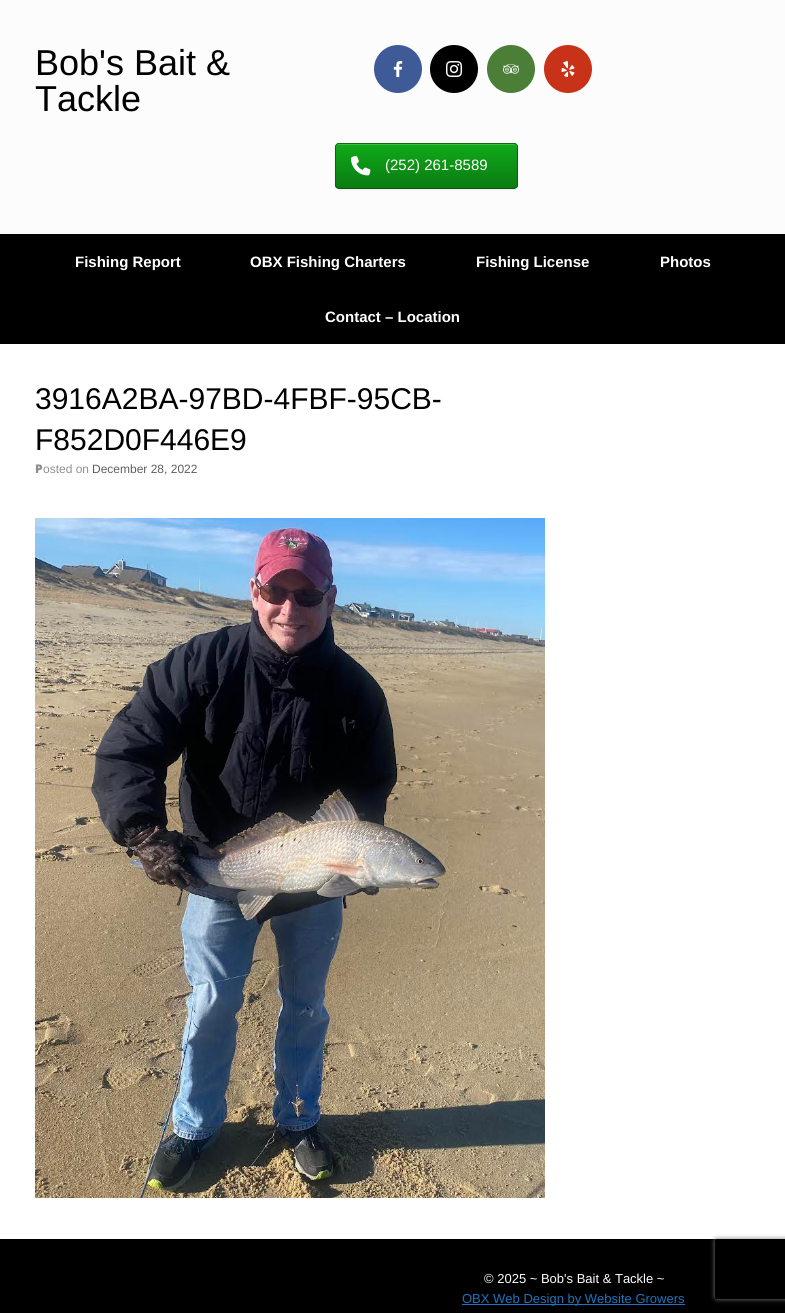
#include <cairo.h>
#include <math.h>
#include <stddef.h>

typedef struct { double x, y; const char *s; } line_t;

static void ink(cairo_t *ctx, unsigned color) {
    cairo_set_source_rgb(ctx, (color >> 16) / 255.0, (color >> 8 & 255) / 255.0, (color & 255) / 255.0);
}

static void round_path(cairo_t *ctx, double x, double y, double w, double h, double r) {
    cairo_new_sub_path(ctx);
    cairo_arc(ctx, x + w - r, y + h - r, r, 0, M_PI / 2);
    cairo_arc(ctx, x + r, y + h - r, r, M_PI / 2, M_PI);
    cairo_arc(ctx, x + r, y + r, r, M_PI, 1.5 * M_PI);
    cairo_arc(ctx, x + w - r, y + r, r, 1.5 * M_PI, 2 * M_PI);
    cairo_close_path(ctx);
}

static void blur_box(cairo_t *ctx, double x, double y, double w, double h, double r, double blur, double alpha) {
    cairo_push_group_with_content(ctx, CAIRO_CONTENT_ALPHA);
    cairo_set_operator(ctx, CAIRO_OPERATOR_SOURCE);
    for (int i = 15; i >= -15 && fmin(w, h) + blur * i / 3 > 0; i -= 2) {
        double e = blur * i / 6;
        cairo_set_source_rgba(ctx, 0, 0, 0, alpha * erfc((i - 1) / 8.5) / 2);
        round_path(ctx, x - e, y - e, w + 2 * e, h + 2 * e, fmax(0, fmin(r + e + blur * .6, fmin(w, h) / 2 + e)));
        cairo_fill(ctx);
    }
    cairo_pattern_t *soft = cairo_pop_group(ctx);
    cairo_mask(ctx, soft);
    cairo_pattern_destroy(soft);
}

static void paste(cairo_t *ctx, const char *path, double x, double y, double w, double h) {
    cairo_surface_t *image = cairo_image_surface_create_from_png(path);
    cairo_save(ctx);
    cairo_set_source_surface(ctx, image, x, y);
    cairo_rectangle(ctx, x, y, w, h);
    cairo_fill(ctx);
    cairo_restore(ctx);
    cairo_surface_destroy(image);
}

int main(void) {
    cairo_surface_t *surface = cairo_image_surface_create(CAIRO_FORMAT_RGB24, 785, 1313);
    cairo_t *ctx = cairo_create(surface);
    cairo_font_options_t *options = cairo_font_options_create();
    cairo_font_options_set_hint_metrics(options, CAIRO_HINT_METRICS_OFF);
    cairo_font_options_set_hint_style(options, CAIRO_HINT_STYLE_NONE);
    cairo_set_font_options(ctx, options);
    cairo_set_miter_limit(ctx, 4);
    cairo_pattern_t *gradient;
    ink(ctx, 0x000000);
    cairo_paint(ctx);
    ink(ctx, 0xFCFCFC);
    cairo_rectangle(ctx, 0, 0, 785, 234);
    cairo_fill(ctx);
    cairo_select_font_face(ctx, "Liberation Sans", CAIRO_FONT_SLANT_NORMAL, CAIRO_FONT_WEIGHT_NORMAL);
    cairo_set_font_size(ctx, 36);
    ink(ctx, 0x000000);
    cairo_move_to(ctx, 35, 75);
    cairo_show_text(ctx, "Bob's Bait &");
    cairo_move_to(ctx, 35, 111);
    cairo_show_text(ctx, "Tackle");
    ink(ctx, 0x3E5B98);
    cairo_new_path(ctx);
    cairo_arc(ctx, 398, 69, 24, 0, 2 * M_PI);
    cairo_fill(ctx);
    paste(ctx, "media/1.png", 393, 61, 10, 16);
    ink(ctx, 0x000000);
    cairo_arc(ctx, 454, 69, 24, 0, 2 * M_PI);
    cairo_fill(ctx);
    paste(ctx, "media/2.png", 446, 61, 16, 16);
    ink(ctx, 0x4B7E37);
    cairo_arc(ctx, 511, 69, 24, 0, 2 * M_PI);
    cairo_fill(ctx);
    paste(ctx, "media/3.png", 503, 64, 16, 10);
    ink(ctx, 0xC83218);
    cairo_arc(ctx, 568, 69, 24, 0, 2 * M_PI);
    cairo_fill(ctx);
    paste(ctx, "media/4.png", 561, 61, 14, 16);
    ink(ctx, 0x000000);
    blur_box(ctx, 335, 144, 183, 46, 4, 1, 0.07);
    cairo_save(ctx);
    round_path(ctx, 335, 143, 183, 46, 4);
    cairo_clip(ctx);
    gradient = cairo_pattern_create_linear(336, 144, 336, 100);
    cairo_pattern_add_color_stop_rgba(gradient, 0, 0.043, 0.482, 0.071, 1);
    cairo_pattern_add_color_stop_rgba(gradient, 1, 0.059, 0.667, 0.098, 1);
    cairo_set_source(ctx, gradient);
    cairo_pattern_destroy(gradient);
    cairo_rectangle(ctx, 335, 143, 183, 1);
    cairo_fill(ctx);
    gradient = cairo_pattern_create_linear(336, 188, 336, 144);
    cairo_pattern_add_color_stop_rgba(gradient, 0, 0.043, 0.482, 0.071, 1);
    cairo_pattern_add_color_stop_rgba(gradient, 1, 0.059, 0.667, 0.098, 1);
    cairo_set_source(ctx, gradient);
    cairo_pattern_destroy(gradient);
    cairo_rectangle(ctx, 335, 144, 183, 44);
    cairo_fill(ctx);
    cairo_restore(ctx);
    ink(ctx, 0x3FBA47);
    cairo_new_path(ctx);
    cairo_move_to(ctx, 339, 145);
    cairo_line_to(ctx, 515, 145);
    cairo_line_to(ctx, 516, 146);
    cairo_line_to(ctx, 517, 148);
    cairo_line_to(ctx, 517, 146);
    cairo_curve_to(ctx, 517, 145, 516, 144, 514, 144);
    cairo_line_to(ctx, 338, 144);
    cairo_curve_to(ctx, 337, 144, 336, 145, 336, 146);
    cairo_line_to(ctx, 336, 148);
    cairo_curve_to(ctx, 336, 146, 337, 145, 339, 145);
    cairo_close_path(ctx);
    cairo_fill(ctx);
    cairo_new_path(ctx);
    cairo_move_to(ctx, 336.5, 144.5);
    cairo_line_to(ctx, 338.5, 143.5);
    cairo_line_to(ctx, 514.5, 143.5);
    cairo_line_to(ctx, 516.5, 144.5);
    ink(ctx, 0x0A6D10);
    cairo_set_line_width(ctx, 1);
    cairo_stroke(ctx);
    cairo_new_path(ctx);
    cairo_move_to(ctx, 516.5, 144.5);
    cairo_line_to(ctx, 517.5, 146.5);
    cairo_line_to(ctx, 517.5, 185.5);
    cairo_line_to(ctx, 516.5, 187.5);
    ink(ctx, 0x09640F);
    cairo_stroke(ctx);
    cairo_new_path(ctx);
    cairo_move_to(ctx, 516.5, 187.5);
    cairo_line_to(ctx, 514.5, 188.5);
    cairo_line_to(ctx, 338.5, 188.5);
    cairo_line_to(ctx, 336.5, 187.5);
    ink(ctx, 0x08560D);
    cairo_stroke(ctx);
    cairo_new_path(ctx);
    cairo_move_to(ctx, 336.5, 187.5);
    cairo_line_to(ctx, 335.5, 185.5);
    cairo_line_to(ctx, 335.5, 146.5);
    cairo_line_to(ctx, 336.5, 144.5);
    ink(ctx, 0x09640F);
    cairo_stroke(ctx);
    paste(ctx, "media/5.png", 351, 156, 20, 20);
    cairo_set_font_size(ctx, 15);
    ink(ctx, 0xFFFFFF);
    cairo_move_to(ctx, 385, 170);
    cairo_show_text(ctx, "(252) 261-8589");
    cairo_select_font_face(ctx, "Liberation Sans", CAIRO_FONT_SLANT_NORMAL, CAIRO_FONT_WEIGHT_BOLD);
    {
        static const line_t items[] = {
            {75, 267, "Fishing Report"},
            {250, 267, "OBX Fishing Charters"},
            {476, 267, "Fishing License"},
            {660, 267, "Photos"},
            {325, 322, "Contact – Location"},
        };
        for (size_t i = 0; i < sizeof items / sizeof *items; i++) {
            cairo_move_to(ctx, items[i].x, items[i].y);
            cairo_show_text(ctx, items[i].s);
        }
    }
    cairo_rectangle(ctx, 0, 344, 785, 895);
    cairo_fill(ctx);
    cairo_select_font_face(ctx, "Liberation Sans", CAIRO_FONT_SLANT_NORMAL, CAIRO_FONT_WEIGHT_NORMAL);
    cairo_set_font_size(ctx, 30);
    ink(ctx, 0x000000);
    cairo_move_to(ctx, 35, 409);
    cairo_show_text(ctx, "3916A2BA-97BD-4FBF-95CB-");
    cairo_move_to(ctx, 35, 450);
    cairo_show_text(ctx, "F852D0F446E9");
    cairo_select_font_face(ctx, "Noto Sans Black", CAIRO_FONT_SLANT_NORMAL, CAIRO_FONT_WEIGHT_NORMAL);
    cairo_set_font_size(ctx, 12);
    ink(ctx, 0x8F8F8F);
    cairo_move_to(ctx, 35, 473);
    cairo_show_text(ctx, "P");
    cairo_select_font_face(ctx, "Liberation Sans", CAIRO_FONT_SLANT_NORMAL, CAIRO_FONT_WEIGHT_NORMAL);
    cairo_move_to(ctx, 43, 473);
    cairo_show_text(ctx, "osted on");
    ink(ctx, 0x5E5E5E);
    cairo_move_to(ctx, 92, 473);
    cairo_show_text(ctx, "December 28, 2022");
    paste(ctx, "media/6.png", 35, 518, 510, 680);
    cairo_set_font_size(ctx, 13);
    ink(ctx, 0xFFFFFF);
    cairo_move_to(ctx, 484, 1283);
    cairo_show_text(ctx, "© 2025 ~ Bob's Bait & Tackle ~");
    ink(ctx, 0x1E73BE);
    cairo_rectangle(ctx, 462, 1304, 223, 1);
    cairo_fill(ctx);
    cairo_move_to(ctx, 462, 1303);
    cairo_show_text(ctx, "OBX Web Design by Website Growers");
    cairo_save(ctx);
    cairo_set_fill_rule(ctx, CAIRO_FILL_RULE_EVEN_ODD);
    cairo_new_path(ctx);
    cairo_move_to(ctx, 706, 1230);
    cairo_line_to(ctx, 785, 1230);
    cairo_line_to(ctx, 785, 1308);
    cairo_line_to(ctx, 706, 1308);
    cairo_close_path(ctx);
    cairo_move_to(ctx, 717, 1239);
    cairo_line_to(ctx, 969, 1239);
    cairo_curve_to(ctx, 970, 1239, 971, 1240, 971, 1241);
    cairo_line_to(ctx, 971, 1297);
    cairo_curve_to(ctx, 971, 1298, 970, 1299, 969, 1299);
    cairo_line_to(ctx, 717, 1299);
    cairo_curve_to(ctx, 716, 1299, 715, 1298, 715, 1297);
    cairo_line_to(ctx, 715, 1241);
    cairo_curve_to(ctx, 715, 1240, 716, 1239, 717, 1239);
    cairo_close_path(ctx);
    cairo_clip(ctx);
    ink(ctx, 0x808080);
    blur_box(ctx, 715, 1239, 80, 60, 2, 2.5, 1);
    cairo_restore(ctx);
    cairo_surface_write_to_png(surface, "image.png");
    cairo_font_options_destroy(options);
    cairo_destroy(ctx);
    cairo_surface_destroy(surface);
    return 0;
}
